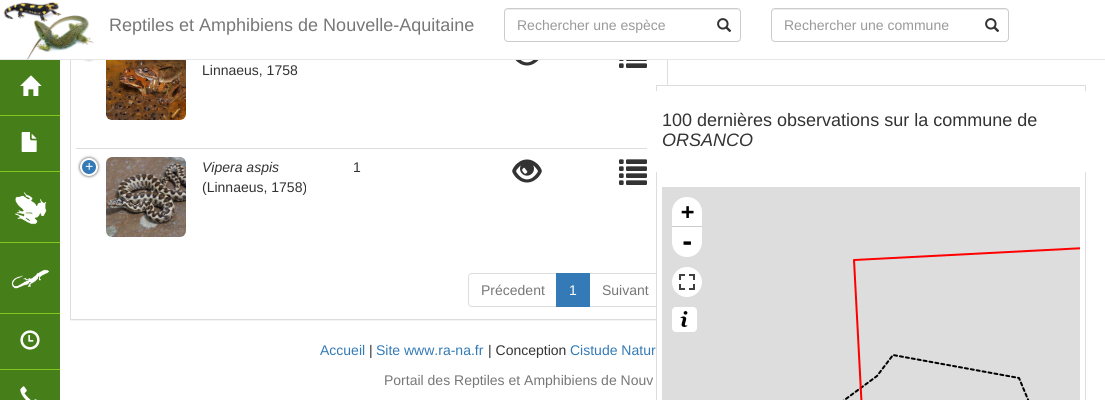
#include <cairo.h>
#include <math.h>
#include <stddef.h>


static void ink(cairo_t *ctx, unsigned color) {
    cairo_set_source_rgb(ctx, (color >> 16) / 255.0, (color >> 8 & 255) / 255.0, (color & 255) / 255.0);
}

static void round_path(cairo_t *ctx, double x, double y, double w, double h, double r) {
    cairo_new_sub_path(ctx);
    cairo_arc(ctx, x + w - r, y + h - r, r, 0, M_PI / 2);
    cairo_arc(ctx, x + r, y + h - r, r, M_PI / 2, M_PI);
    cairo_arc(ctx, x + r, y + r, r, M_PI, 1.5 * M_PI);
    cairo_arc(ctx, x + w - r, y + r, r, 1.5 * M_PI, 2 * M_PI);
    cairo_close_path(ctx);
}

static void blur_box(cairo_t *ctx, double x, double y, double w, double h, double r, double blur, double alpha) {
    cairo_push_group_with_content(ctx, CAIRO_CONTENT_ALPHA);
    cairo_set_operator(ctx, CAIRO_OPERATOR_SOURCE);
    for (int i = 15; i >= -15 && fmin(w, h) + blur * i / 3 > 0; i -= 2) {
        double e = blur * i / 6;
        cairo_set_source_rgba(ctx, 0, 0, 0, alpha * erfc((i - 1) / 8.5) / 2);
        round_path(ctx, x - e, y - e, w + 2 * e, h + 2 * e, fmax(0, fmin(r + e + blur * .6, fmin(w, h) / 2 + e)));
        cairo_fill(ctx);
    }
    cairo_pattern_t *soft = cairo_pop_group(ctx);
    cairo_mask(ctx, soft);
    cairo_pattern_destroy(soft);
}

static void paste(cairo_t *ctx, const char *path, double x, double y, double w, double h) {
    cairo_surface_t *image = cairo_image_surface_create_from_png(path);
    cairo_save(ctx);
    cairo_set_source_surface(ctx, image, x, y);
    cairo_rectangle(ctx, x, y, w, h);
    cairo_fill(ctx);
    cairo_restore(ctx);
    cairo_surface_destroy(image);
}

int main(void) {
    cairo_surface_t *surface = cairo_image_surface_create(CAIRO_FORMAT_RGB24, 1105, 400);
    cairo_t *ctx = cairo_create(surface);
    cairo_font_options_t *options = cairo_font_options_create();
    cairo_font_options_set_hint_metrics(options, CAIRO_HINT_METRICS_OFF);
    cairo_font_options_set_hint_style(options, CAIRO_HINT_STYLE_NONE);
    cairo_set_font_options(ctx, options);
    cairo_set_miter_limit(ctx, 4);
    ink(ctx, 0xFFFFFF);
    cairo_paint(ctx);
    cairo_save(ctx);
    cairo_rectangle(ctx, 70, 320, 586, 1);
    cairo_clip(ctx);
    ink(ctx, 0x000000);
    blur_box(ctx, 70, -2, 598, 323, 0, 0.5, 0.05);
    cairo_restore(ctx);
    cairo_rectangle(ctx, 70.5, -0.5, 597, 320);
    ink(ctx, 0xDDDDDD);
    cairo_set_line_width(ctx, 1);
    cairo_stroke(ctx);
    ink(ctx, 0x444444);
    blur_box(ctx, 80, 41, 18, 18, 9, 1.5, 1);
    ink(ctx, 0xFFFFFF);
    cairo_rectangle(ctx, 70, 0, 598, 59);
    cairo_fill(ctx);
    ink(ctx, 0xE7E7E7);
    cairo_rectangle(ctx, 0, 59, 1105, 1);
    cairo_fill(ctx);
    paste(ctx, "media/1.png", 3, 2, 91, 58);
    cairo_select_font_face(ctx, "Liberation Sans", CAIRO_FONT_SLANT_NORMAL, CAIRO_FONT_WEIGHT_NORMAL);
    cairo_set_font_size(ctx, 18);
    ink(ctx, 0x777777);
    cairo_move_to(ctx, 109, 31);
    cairo_show_text(ctx, "Reptiles et Amphibiens de Nouvelle-Aquitaine");
    ink(ctx, 0xECECEC);
    cairo_new_path(ctx);
    cairo_move_to(ctx, 508, 10);
    cairo_line_to(ctx, 737, 10);
    cairo_curve_to(ctx, 739, 10, 740, 11, 740, 13);
    cairo_curve_to(ctx, 740, 11, 739, 9, 737, 9);
    cairo_line_to(ctx, 508, 9);
    cairo_curve_to(ctx, 506, 9, 505, 11, 505, 13);
    cairo_curve_to(ctx, 505, 11, 506, 10, 508, 10);
    cairo_close_path(ctx);
    cairo_fill(ctx);
    round_path(ctx, 504.5, 8.5, 236, 33, 3.5);
    ink(ctx, 0xCCCCCC);
    cairo_stroke(ctx);
    cairo_set_font_size(ctx, 14);
    ink(ctx, 0x999999);
    cairo_move_to(ctx, 517, 30);
    cairo_show_text(ctx, "Rechercher une espèce");
    paste(ctx, "media/2.png", 717, 18, 15, 14);
    ink(ctx, 0xECECEC);
    cairo_new_path(ctx);
    cairo_move_to(ctx, 775, 10);
    cairo_line_to(ctx, 1006, 10);
    cairo_line_to(ctx, 1008, 11);
    cairo_line_to(ctx, 1008, 13);
    cairo_curve_to(ctx, 1008, 11, 1007, 9, 1005, 9);
    cairo_line_to(ctx, 775, 9);
    cairo_curve_to(ctx, 773, 9, 772, 11, 772, 13);
    cairo_curve_to(ctx, 772, 11, 773, 10, 775, 10);
    cairo_close_path(ctx);
    cairo_fill(ctx);
    round_path(ctx, 771.5, 8.5, 237, 33, 3.5);
    ink(ctx, 0xCCCCCC);
    cairo_stroke(ctx);
    ink(ctx, 0x999999);
    cairo_move_to(ctx, 784, 30);
    cairo_show_text(ctx, "Rechercher une commune");
    paste(ctx, "media/2.png", 985, 18, 15, 14);
    ink(ctx, 0x467E19);
    cairo_rectangle(ctx, 0, 60, 60, 340);
    cairo_fill(ctx);
    ink(ctx, 0x82C91E);
    cairo_rectangle(ctx, 0, 115, 60, 1);
    cairo_fill(ctx);
    paste(ctx, "media/3.png", 20, 75, 22, 21);
    cairo_rectangle(ctx, 0, 171, 60, 1);
    cairo_fill(ctx);
    paste(ctx, "media/4.png", 21, 132, 16, 20);
    cairo_rectangle(ctx, 0, 242, 60, 1);
    cairo_fill(ctx);
    paste(ctx, "media/5.png", 14, 192, 33, 33);
    cairo_rectangle(ctx, 0, 313, 60, 1);
    cairo_fill(ctx);
    paste(ctx, "media/6.png", 11, 269, 39, 20);
    cairo_rectangle(ctx, 0, 369, 60, 1);
    cairo_fill(ctx);
    paste(ctx, "media/7.png", 20, 330, 20, 20);
    paste(ctx, "media/8.png", 20, 386, 17, 14);
    paste(ctx, "media/9.png", 106, 60, 80, 60);
    ink(ctx, 0x333333);
    cairo_move_to(ctx, 202, 75);
    cairo_show_text(ctx, "Linnaeus, 1758");
    paste(ctx, "media/10.png", 515, 60, 24, 6);
    paste(ctx, "media/11.png", 619, 60, 28, 8);
    ink(ctx, 0x444444);
    blur_box(ctx, 80, 158, 18, 18, 9, 1.5, 1);
    ink(ctx, 0x337AB7);
    cairo_arc(ctx, 89, 167, 8, 0, 2 * M_PI);
    cairo_fill_preserve(ctx);
    ink(ctx, 0xFFFFFF);
    cairo_set_line_width(ctx, 2);
    cairo_stroke(ctx);
    cairo_select_font_face(ctx, "Liberation Mono", CAIRO_FONT_SLANT_NORMAL, CAIRO_FONT_WEIGHT_NORMAL);
    cairo_move_to(ctx, 85, 171);
    cairo_show_text(ctx, "+");
    paste(ctx, "media/12.png", 106, 157, 80, 80);
    ink(ctx, 0xDDDDDD);
    cairo_rectangle(ctx, 76, 148, 571, 1);
    cairo_fill(ctx);
    cairo_select_font_face(ctx, "Liberation Sans", CAIRO_FONT_SLANT_ITALIC, CAIRO_FONT_WEIGHT_NORMAL);
    ink(ctx, 0x333333);
    cairo_move_to(ctx, 202, 172);
    cairo_show_text(ctx, "Vipera aspis");
    cairo_select_font_face(ctx, "Liberation Sans", CAIRO_FONT_SLANT_NORMAL, CAIRO_FONT_WEIGHT_NORMAL);
    cairo_move_to(ctx, 202, 192);
    cairo_show_text(ctx, "(Linnaeus, 1758)");
    cairo_move_to(ctx, 353, 172);
    cairo_show_text(ctx, "1");
    paste(ctx, "media/13.png", 512, 159, 30, 24);
    paste(ctx, "media/14.png", 619, 159, 28, 26);
    cairo_new_path(ctx);
    cairo_move_to(ctx, 472, 273.5);
    cairo_line_to(ctx, 556.5, 273.5);
    cairo_line_to(ctx, 556.5, 306.5);
    cairo_line_to(ctx, 472, 306.5);
    cairo_curve_to(ctx, 470, 306.5, 468.5, 305, 468.5, 303);
    cairo_line_to(ctx, 468.5, 277);
    cairo_curve_to(ctx, 468.5, 275, 470, 273.5, 472, 273.5);
    cairo_close_path(ctx);
    ink(ctx, 0xDDDDDD);
    cairo_set_line_width(ctx, 1);
    cairo_stroke(ctx);
    ink(ctx, 0x777777);
    cairo_move_to(ctx, 481, 295);
    cairo_show_text(ctx, "Précedent");
    cairo_rectangle(ctx, 589.5, 273.5, 72, 33);
    ink(ctx, 0xDDDDDD);
    cairo_stroke(ctx);
    ink(ctx, 0x337AB7);
    cairo_rectangle(ctx, 556, 273, 34, 34);
    cairo_fill(ctx);
    ink(ctx, 0xFFFFFF);
    cairo_move_to(ctx, 569, 295);
    cairo_show_text(ctx, "1");
    ink(ctx, 0x777777);
    cairo_move_to(ctx, 602, 295);
    cairo_show_text(ctx, "Suivant");
    ink(ctx, 0xFFFFFF);
    cairo_rectangle(ctx, 657, 86, 11, 235);
    cairo_fill(ctx);
    cairo_rectangle(ctx, 656.5, 85.5, 429, 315);
    ink(ctx, 0xDDDDDD);
    cairo_stroke(ctx);
    ink(ctx, 0xFFFFFF);
    cairo_new_path(ctx);
    cairo_move_to(ctx, 650, 91);
    cairo_line_to(ctx, 1092, 91);
    cairo_curve_to(ctx, 1093.5, 91, 1095, 92.5, 1095, 94);
    cairo_line_to(ctx, 1095, 172);
    cairo_line_to(ctx, 647, 172);
    cairo_line_to(ctx, 647, 94);
    cairo_curve_to(ctx, 647, 92.5, 648.5, 91, 650, 91);
    cairo_close_path(ctx);
    cairo_fill(ctx);
    cairo_set_font_size(ctx, 18);
    ink(ctx, 0x333333);
    cairo_move_to(ctx, 662, 126);
    cairo_show_text(ctx, "100 dernières observations sur la commune de");
    cairo_select_font_face(ctx, "Liberation Sans", CAIRO_FONT_SLANT_ITALIC, CAIRO_FONT_WEIGHT_NORMAL);
    cairo_move_to(ctx, 662, 146);
    cairo_show_text(ctx, "ORSANCO");
    ink(ctx, 0xDDDDDD);
    cairo_rectangle(ctx, 662, 187, 418, 213);
    cairo_fill(ctx);
    ink(ctx, 0xFFFFFF);
    cairo_new_path(ctx);
    cairo_move_to(ctx, 687, 197);
    cairo_curve_to(ctx, 695.5, 197, 702, 203.5, 702, 212);
    cairo_line_to(ctx, 702, 227);
    cairo_line_to(ctx, 672, 227);
    cairo_line_to(ctx, 672, 212);
    cairo_curve_to(ctx, 672, 203.5, 678.5, 197, 687, 197);
    cairo_close_path(ctx);
    cairo_fill(ctx);
    ink(ctx, 0xCCCCCC);
    cairo_rectangle(ctx, 672, 226, 30, 1);
    cairo_fill(ctx);
    cairo_select_font_face(ctx, "DejaVu Sans Mono", CAIRO_FONT_SLANT_NORMAL, CAIRO_FONT_WEIGHT_BOLD);
    cairo_set_font_size(ctx, 22);
    ink(ctx, 0x000000);
    cairo_move_to(ctx, 681, 219);
    cairo_show_text(ctx, "+");
    ink(ctx, 0xFFFFFF);
    cairo_new_path(ctx);
    cairo_move_to(ctx, 672, 227);
    cairo_line_to(ctx, 702, 227);
    cairo_line_to(ctx, 702, 242);
    cairo_curve_to(ctx, 702, 250.5, 695.5, 257, 687, 257);
    cairo_curve_to(ctx, 678.5, 257, 672, 250.5, 672, 242);
    cairo_close_path(ctx);
    cairo_fill(ctx);
    cairo_set_font_size(ctx, 24);
    ink(ctx, 0x000000);
    cairo_move_to(ctx, 680, 250);
    cairo_show_text(ctx, "-");
    ink(ctx, 0xFFFFFF);
    cairo_new_path(ctx);
    cairo_arc(ctx, 687, 282, 15, 0, 2 * M_PI);
    cairo_fill(ctx);
    paste(ctx, "media/15.png", 679, 274, 16, 16);
    round_path(ctx, 672.5, 307.5, 24, 24, 3.5);
    cairo_fill_preserve(ctx);
    cairo_stroke(ctx);
    paste(ctx, "media/16.png", 680, 311, 8, 16);
    cairo_new_path(ctx);
    cairo_move_to(ctx, 969, 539);
    cairo_line_to(ctx, 885, 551);
    cairo_line_to(ctx, 797, 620);
    cairo_line_to(ctx, 716, 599);
    cairo_line_to(ctx, 713, 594);
    cairo_line_to(ctx, 755, 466);
    cairo_line_to(ctx, 877, 376);
    cairo_line_to(ctx, 893, 355);
    cairo_line_to(ctx, 1019, 378);
    cairo_line_to(ctx, 1029, 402);
    cairo_line_to(ctx, 1016, 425);
    cairo_line_to(ctx, 992, 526);
    cairo_close_path(ctx);
    ink(ctx, 0x000000);
    cairo_set_line_width(ctx, 2);
    cairo_set_line_cap(ctx, CAIRO_LINE_CAP_ROUND);
    cairo_set_line_join(ctx, CAIRO_LINE_JOIN_ROUND);
    cairo_set_dash(ctx, (double[]){3, 3}, 2, 0);
    cairo_stroke(ctx);
    cairo_save(ctx);
    cairo_rectangle(ctx, 662, 187, 418, 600);
    cairo_clip(ctx);
    cairo_new_path(ctx);
    cairo_move_to(ctx, 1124, 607);
    cairo_line_to(ctx, 873, 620);
    cairo_line_to(ctx, 854, 260);
    cairo_line_to(ctx, 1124, 246);
    cairo_close_path(ctx);
    ink(ctx, 0xFF0000);
    cairo_set_dash(ctx, NULL, 0, 0);
    cairo_stroke(ctx);
    cairo_restore(ctx);
    cairo_select_font_face(ctx, "Liberation Sans", CAIRO_FONT_SLANT_NORMAL, CAIRO_FONT_WEIGHT_NORMAL);
    cairo_set_font_size(ctx, 14);
    ink(ctx, 0x337AB7);
    cairo_move_to(ctx, 320, 355);
    cairo_show_text(ctx, "Accueil");
    ink(ctx, 0x333333);
    cairo_move_to(ctx, 369, 355);
    cairo_show_text(ctx, "|");
    ink(ctx, 0x337AB7);
    cairo_move_to(ctx, 376, 355);
    cairo_show_text(ctx, "Site www.ra-na.fr");
    ink(ctx, 0x333333);
    cairo_move_to(ctx, 488, 355);
    cairo_show_text(ctx, "| Conception");
    ink(ctx, 0x337AB7);
    cairo_move_to(ctx, 570, 355);
    cairo_show_text(ctx, "Cistude Natur");
    ink(ctx, 0x777777);
    cairo_move_to(ctx, 384, 385);
    cairo_show_text(ctx, "Portail des Reptiles et Amphibiens de Nouv");
    cairo_surface_write_to_png(surface, "image.png");
    cairo_font_options_destroy(options);
    cairo_destroy(ctx);
    cairo_surface_destroy(surface);
    return 0;
}
